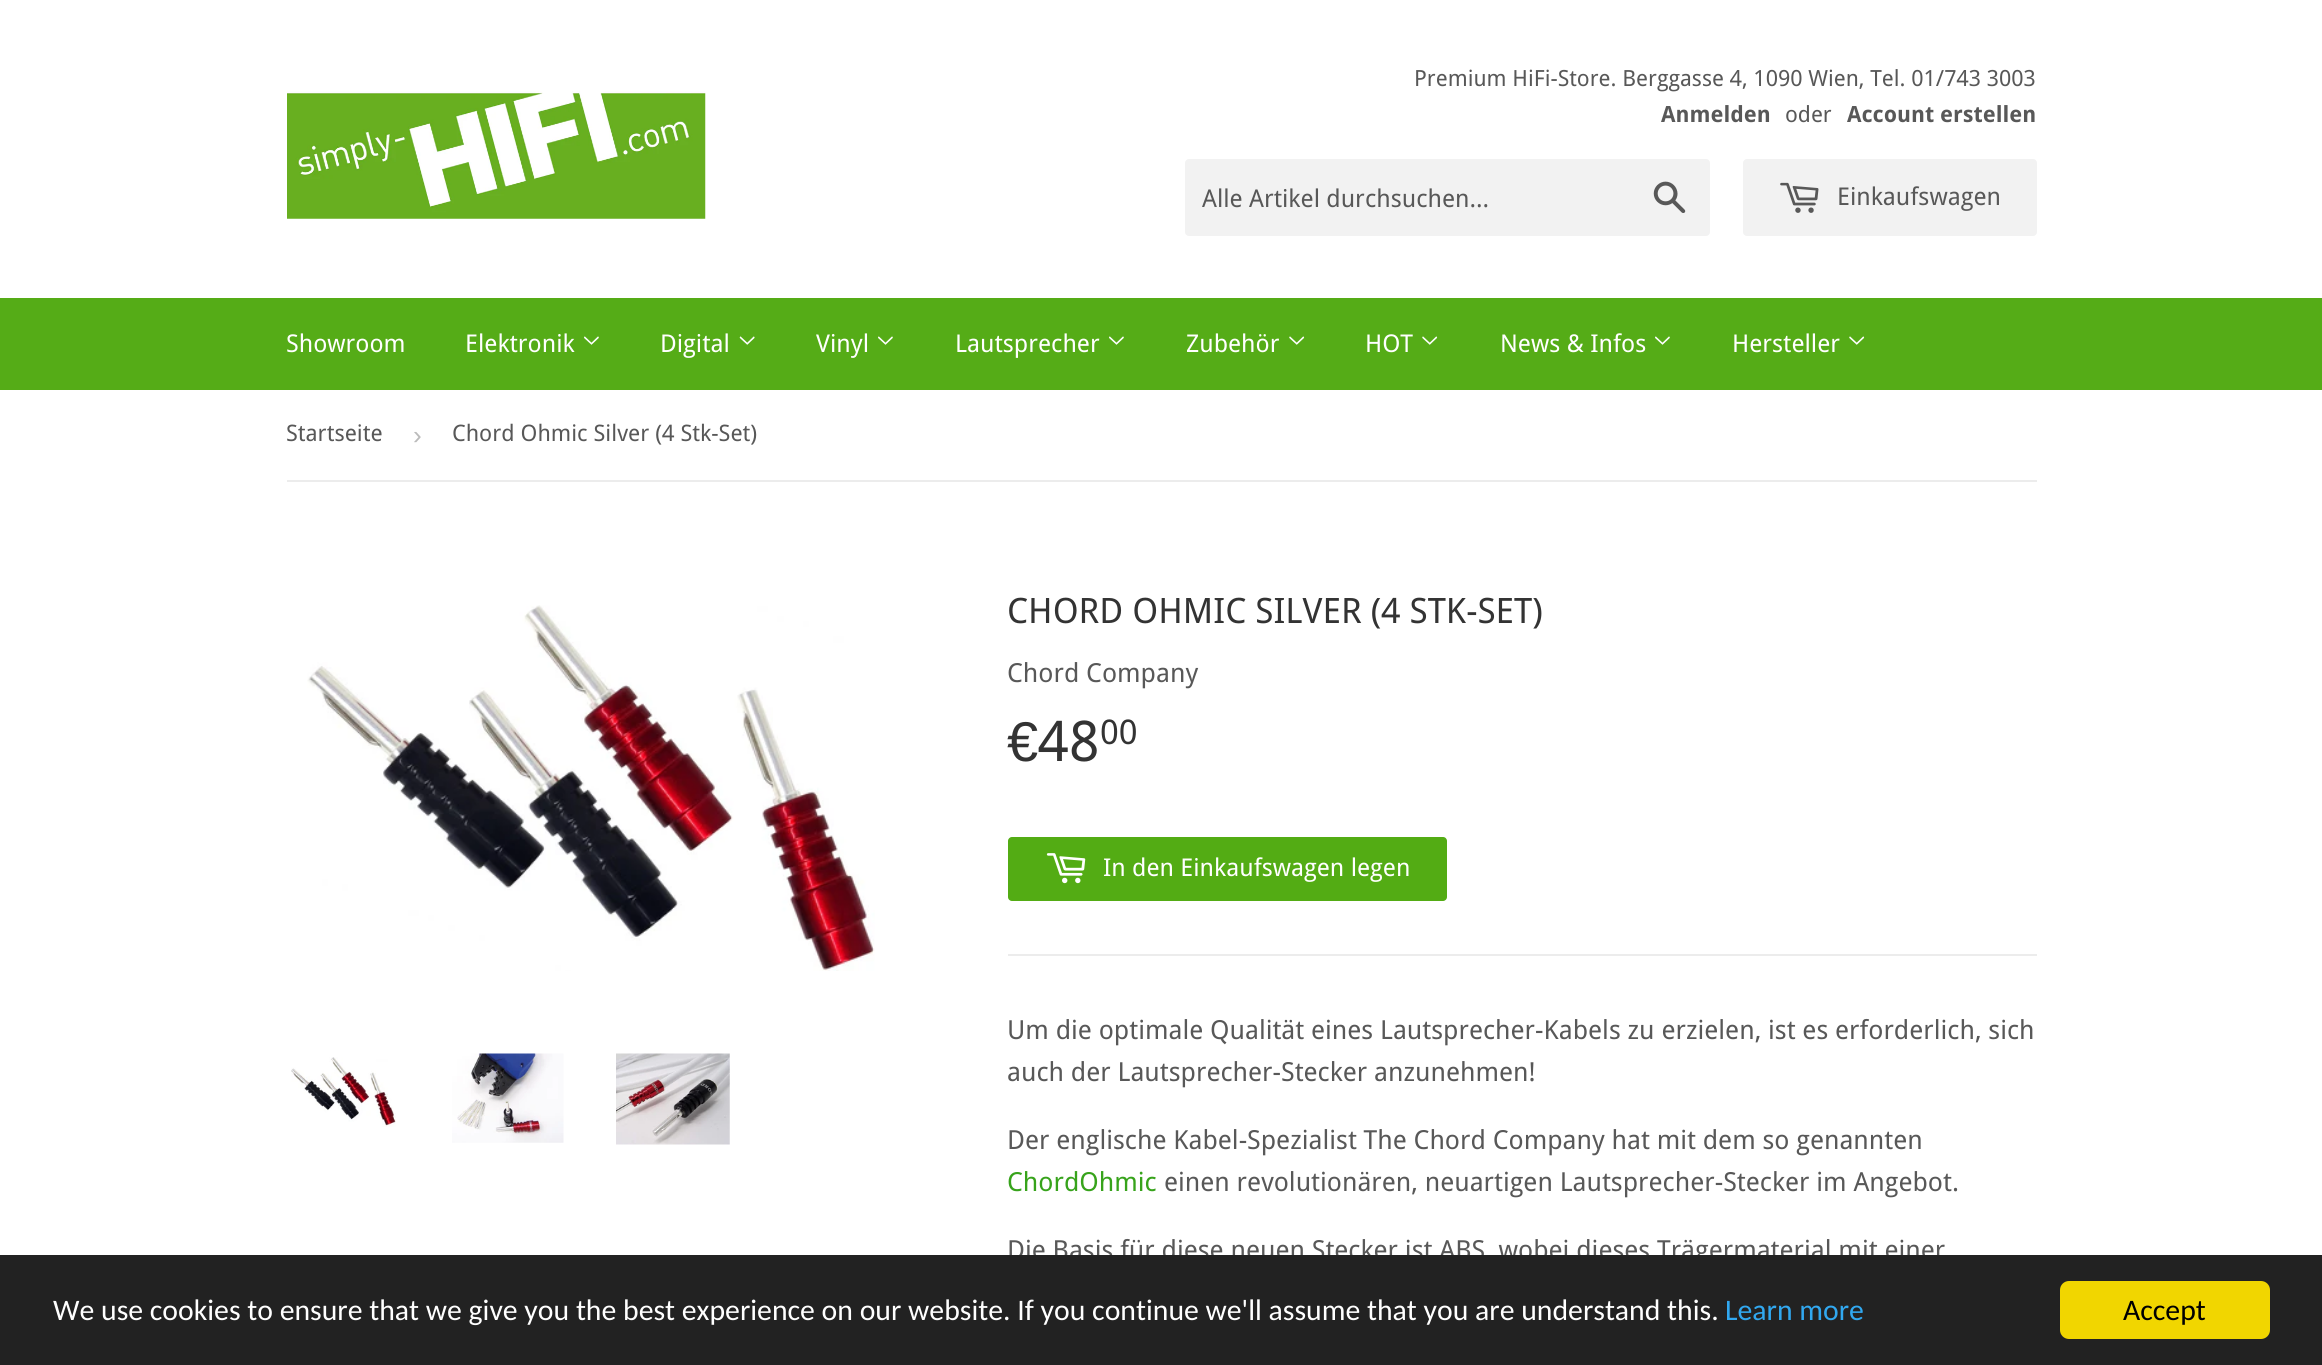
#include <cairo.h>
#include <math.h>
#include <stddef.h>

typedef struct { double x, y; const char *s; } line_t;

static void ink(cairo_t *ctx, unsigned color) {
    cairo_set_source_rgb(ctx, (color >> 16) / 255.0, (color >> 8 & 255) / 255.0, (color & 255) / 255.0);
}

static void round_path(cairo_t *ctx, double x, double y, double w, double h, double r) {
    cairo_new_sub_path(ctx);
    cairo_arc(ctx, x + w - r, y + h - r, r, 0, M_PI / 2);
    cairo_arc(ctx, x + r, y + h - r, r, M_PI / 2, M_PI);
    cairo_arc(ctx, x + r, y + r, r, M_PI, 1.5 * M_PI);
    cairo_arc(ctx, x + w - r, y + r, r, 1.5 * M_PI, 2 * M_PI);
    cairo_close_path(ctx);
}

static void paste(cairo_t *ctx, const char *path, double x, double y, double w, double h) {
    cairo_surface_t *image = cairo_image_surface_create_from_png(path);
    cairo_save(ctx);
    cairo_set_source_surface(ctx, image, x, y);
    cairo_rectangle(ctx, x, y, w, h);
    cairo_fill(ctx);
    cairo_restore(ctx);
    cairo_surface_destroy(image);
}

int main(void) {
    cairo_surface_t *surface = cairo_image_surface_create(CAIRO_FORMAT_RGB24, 2322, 1365);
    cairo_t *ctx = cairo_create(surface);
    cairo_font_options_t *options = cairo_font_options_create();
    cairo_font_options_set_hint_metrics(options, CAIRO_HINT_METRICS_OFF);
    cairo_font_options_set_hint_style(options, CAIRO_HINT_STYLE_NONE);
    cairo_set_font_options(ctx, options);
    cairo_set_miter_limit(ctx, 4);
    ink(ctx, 0xFFFFFF);
    cairo_paint(ctx);
    paste(ctx, "media/1.png", 287, 91, 419, 128);
    cairo_select_font_face(ctx, "Droid Sans", CAIRO_FONT_SLANT_NORMAL, CAIRO_FONT_WEIGHT_NORMAL);
    cairo_set_font_size(ctx, 22.3);
    ink(ctx, 0x585858);
    cairo_move_to(ctx, 1414, 86);
    cairo_show_text(ctx, "Premium HiFi-Store. Berggasse 4, 1090 Wien, Tel. 01/743 3003");
    cairo_select_font_face(ctx, "Droid Sans", CAIRO_FONT_SLANT_NORMAL, CAIRO_FONT_WEIGHT_BOLD);
    cairo_move_to(ctx, 1661, 122);
    cairo_show_text(ctx, "Anmelden");
    cairo_select_font_face(ctx, "Droid Sans", CAIRO_FONT_SLANT_NORMAL, CAIRO_FONT_WEIGHT_NORMAL);
    cairo_move_to(ctx, 1785, 122);
    cairo_show_text(ctx, "oder");
    cairo_select_font_face(ctx, "Droid Sans", CAIRO_FONT_SLANT_NORMAL, CAIRO_FONT_WEIGHT_BOLD);
    cairo_move_to(ctx, 1847, 122);
    cairo_show_text(ctx, "Account erstellen");
    ink(ctx, 0xF2F2F2);
    round_path(ctx, 1185, 159, 525, 77, 4);
    cairo_fill(ctx);
    cairo_select_font_face(ctx, "Droid Sans", CAIRO_FONT_SLANT_NORMAL, CAIRO_FONT_WEIGHT_NORMAL);
    cairo_set_font_size(ctx, 24.5);
    ink(ctx, 0x585858);
    cairo_move_to(ctx, 1202, 207);
    cairo_show_text(ctx, "Alle Artikel durchsuchen...");
    paste(ctx, "media/2.png", 1653, 181, 33, 32);
    ink(ctx, 0xF2F2F2);
    round_path(ctx, 1743, 159, 294, 77, 4);
    cairo_fill(ctx);
    paste(ctx, "media/3.png", 1780, 182, 39, 31);
    ink(ctx, 0x585858);
    cairo_move_to(ctx, 1837, 205);
    cairo_show_text(ctx, "Einkaufswagen");
    ink(ctx, 0x55AC17);
    cairo_rectangle(ctx, 0, 298, 2322, 92);
    cairo_fill(ctx);
    ink(ctx, 0xFFFFFF);
    cairo_move_to(ctx, 286, 352);
    cairo_show_text(ctx, "Showroom");
    cairo_move_to(ctx, 465, 352);
    cairo_show_text(ctx, "Elektronik");
    paste(ctx, "media/4.png", 584, 336, 15, 9);
    cairo_move_to(ctx, 660, 352);
    cairo_show_text(ctx, "Digital");
    paste(ctx, "media/5.png", 739, 336, 16, 9);
    cairo_move_to(ctx, 816, 352);
    cairo_show_text(ctx, "Vinyl");
    paste(ctx, "media/4.png", 878, 336, 15, 9);
    cairo_move_to(ctx, 955, 352);
    cairo_show_text(ctx, "Lautsprecher");
    paste(ctx, "media/4.png", 1109, 336, 15, 9);
    cairo_move_to(ctx, 1186, 352);
    cairo_show_text(ctx, "Zubehör");
    paste(ctx, "media/6.png", 1289, 336, 16, 9);
    cairo_move_to(ctx, 1365, 352);
    cairo_show_text(ctx, "HOT");
    paste(ctx, "media/6.png", 1422, 336, 16, 9);
    cairo_move_to(ctx, 1500, 352);
    cairo_show_text(ctx, "News & Infos");
    paste(ctx, "media/4.png", 1655, 336, 15, 9);
    cairo_move_to(ctx, 1732, 352);
    cairo_show_text(ctx, "Hersteller");
    paste(ctx, "media/6.png", 1849, 336, 16, 9);
    ink(ctx, 0xECECEC);
    cairo_rectangle(ctx, 287, 480, 1750, 2);
    cairo_fill(ctx);
    cairo_set_font_size(ctx, 22.75);
    ink(ctx, 0x585858);
    cairo_move_to(ctx, 286, 441);
    cairo_show_text(ctx, "Startseite");
    cairo_select_font_face(ctx, "Liberation Sans", CAIRO_FONT_SLANT_NORMAL, CAIRO_FONT_WEIGHT_NORMAL);
    cairo_set_font_size(ctx, 26.25);
    ink(ctx, 0xBBBBBB);
    cairo_move_to(ctx, 413, 444);
    cairo_show_text(ctx, "›");
    cairo_select_font_face(ctx, "Droid Sans", CAIRO_FONT_SLANT_NORMAL, CAIRO_FONT_WEIGHT_NORMAL);
    cairo_set_font_size(ctx, 22.75);
    ink(ctx, 0x585858);
    cairo_move_to(ctx, 452, 441);
    cairo_show_text(ctx, "Chord Ohmic Silver (4 Stk-Set)");
    paste(ctx, "media/7.png", 307, 605, 568, 366);
    paste(ctx, "media/8.png", 291, 1057, 105, 70);
    paste(ctx, "media/9.png", 452, 1053, 112, 90);
    paste(ctx, "media/10.png", 616, 1053, 114, 92);
    cairo_set_font_size(ctx, 35);
    ink(ctx, 0x333333);
    cairo_move_to(ctx, 1007, 623);
    cairo_show_text(ctx, "CHORD OHMIC SILVER (4 STK-SET)");
    cairo_set_font_size(ctx, 26.25);
    ink(ctx, 0x585858);
    cairo_move_to(ctx, 1007, 682);
    cairo_show_text(ctx, "Chord Company");
    cairo_select_font_face(ctx, "Liberation Sans", CAIRO_FONT_SLANT_NORMAL, CAIRO_FONT_WEIGHT_NORMAL);
    cairo_set_font_size(ctx, 56);
    ink(ctx, 0x333333);
    cairo_move_to(ctx, 1007, 761);
    cairo_show_text(ctx, "€");
    cairo_select_font_face(ctx, "Droid Sans", CAIRO_FONT_SLANT_NORMAL, CAIRO_FONT_WEIGHT_NORMAL);
    cairo_move_to(ctx, 1038, 761);
    cairo_show_text(ctx, "48");
    cairo_set_font_size(ctx, 34);
    cairo_move_to(ctx, 1100, 744);
    cairo_show_text(ctx, "00");
    ink(ctx, 0x53AC14);
    round_path(ctx, 1008, 837, 439, 64, 4);
    cairo_fill(ctx);
    paste(ctx, "media/11.png", 1046, 853, 40, 31);
    cairo_set_font_size(ctx, 24.5);
    ink(ctx, 0xFFFFFF);
    cairo_move_to(ctx, 1103, 876);
    cairo_show_text(ctx, "In den Einkaufswagen legen");
    ink(ctx, 0xECECEC);
    cairo_rectangle(ctx, 1008, 954, 1029, 2);
    cairo_fill(ctx);
    cairo_set_font_size(ctx, 26.25);
    ink(ctx, 0x585858);
    {
        static const line_t items[] = {
            {1007, 1039, "Um die optimale Qualität eines Lautsprecher-Kabels zu erzielen, ist es erforderlich, sich"},
            {1007, 1081, "auch der Lautsprecher-Stecker anzunehmen!"},
            {1007, 1149, "Der englische Kabel-Spezialist The Chord Company hat mit dem so genannten"},
        };
        for (size_t i = 0; i < sizeof items / sizeof *items; i++) {
            cairo_move_to(ctx, items[i].x, items[i].y);
            cairo_show_text(ctx, items[i].s);
        }
    }
    ink(ctx, 0x37A31B);
    cairo_move_to(ctx, 1007, 1191);
    cairo_show_text(ctx, "ChordOhmic");
    ink(ctx, 0x585858);
    cairo_move_to(ctx, 1164, 1191);
    cairo_show_text(ctx, "einen revolutionären, neuartigen Lautsprecher-Stecker im Angebot.");
    cairo_move_to(ctx, 1007, 1259);
    cairo_show_text(ctx, "Die Basis für diese neuen Stecker ist ABS, wobei dieses Trägermaterial mit einer");
    ink(ctx, 0x222222);
    cairo_rectangle(ctx, 0, 1255, 2322, 110);
    cairo_fill(ctx);
    cairo_select_font_face(ctx, "Carlito", CAIRO_FONT_SLANT_NORMAL, CAIRO_FONT_WEIGHT_NORMAL);
    cairo_set_font_size(ctx, 29.75);
    ink(ctx, 0xFFFFFF);
    cairo_move_to(ctx, 53, 1320);
    cairo_show_text(ctx, "We use cookies to ensure that we give you the best experience on our website. If you continue we'll assume that you are understand this.");
    ink(ctx, 0x31A8F0);
    cairo_move_to(ctx, 1725, 1320);
    cairo_show_text(ctx, "Learn more");
    ink(ctx, 0xF1D600);
    round_path(ctx, 2060, 1281, 210, 58, 9);
    cairo_fill(ctx);
    ink(ctx, 0x000000);
    cairo_move_to(ctx, 2123, 1320);
    cairo_show_text(ctx, "Accept");
    cairo_surface_write_to_png(surface, "image.png");
    cairo_font_options_destroy(options);
    cairo_destroy(ctx);
    cairo_surface_destroy(surface);
    return 0;
}
